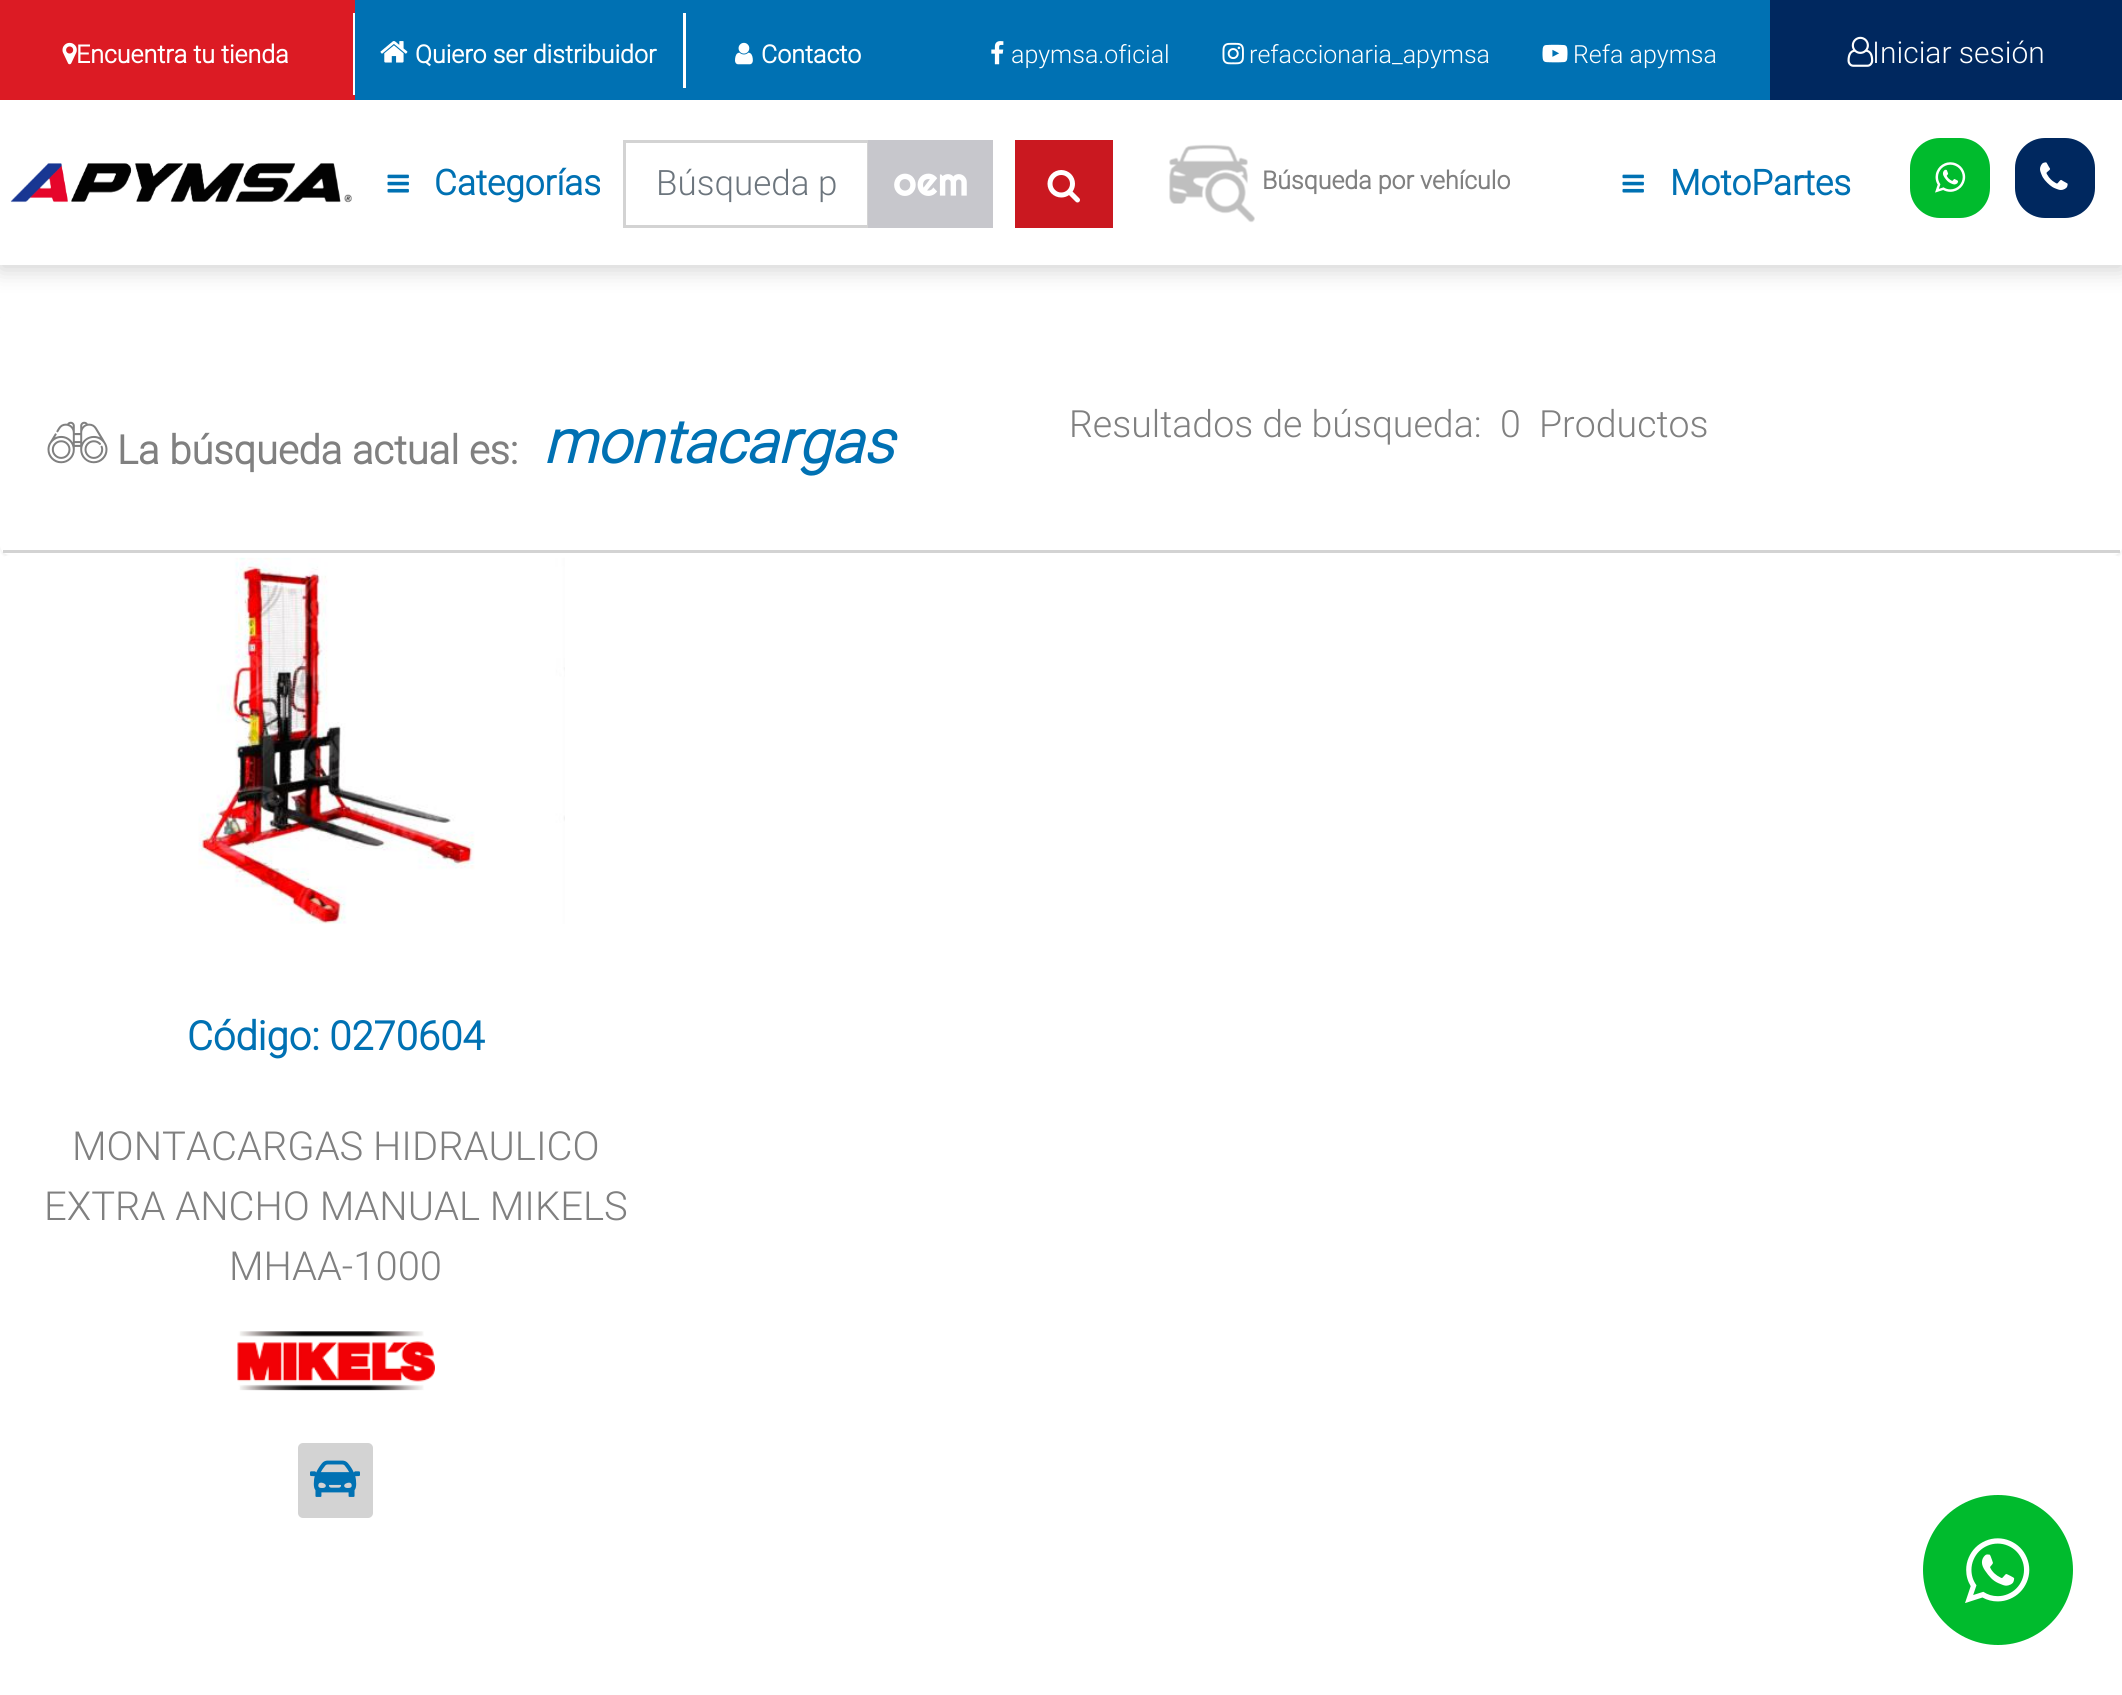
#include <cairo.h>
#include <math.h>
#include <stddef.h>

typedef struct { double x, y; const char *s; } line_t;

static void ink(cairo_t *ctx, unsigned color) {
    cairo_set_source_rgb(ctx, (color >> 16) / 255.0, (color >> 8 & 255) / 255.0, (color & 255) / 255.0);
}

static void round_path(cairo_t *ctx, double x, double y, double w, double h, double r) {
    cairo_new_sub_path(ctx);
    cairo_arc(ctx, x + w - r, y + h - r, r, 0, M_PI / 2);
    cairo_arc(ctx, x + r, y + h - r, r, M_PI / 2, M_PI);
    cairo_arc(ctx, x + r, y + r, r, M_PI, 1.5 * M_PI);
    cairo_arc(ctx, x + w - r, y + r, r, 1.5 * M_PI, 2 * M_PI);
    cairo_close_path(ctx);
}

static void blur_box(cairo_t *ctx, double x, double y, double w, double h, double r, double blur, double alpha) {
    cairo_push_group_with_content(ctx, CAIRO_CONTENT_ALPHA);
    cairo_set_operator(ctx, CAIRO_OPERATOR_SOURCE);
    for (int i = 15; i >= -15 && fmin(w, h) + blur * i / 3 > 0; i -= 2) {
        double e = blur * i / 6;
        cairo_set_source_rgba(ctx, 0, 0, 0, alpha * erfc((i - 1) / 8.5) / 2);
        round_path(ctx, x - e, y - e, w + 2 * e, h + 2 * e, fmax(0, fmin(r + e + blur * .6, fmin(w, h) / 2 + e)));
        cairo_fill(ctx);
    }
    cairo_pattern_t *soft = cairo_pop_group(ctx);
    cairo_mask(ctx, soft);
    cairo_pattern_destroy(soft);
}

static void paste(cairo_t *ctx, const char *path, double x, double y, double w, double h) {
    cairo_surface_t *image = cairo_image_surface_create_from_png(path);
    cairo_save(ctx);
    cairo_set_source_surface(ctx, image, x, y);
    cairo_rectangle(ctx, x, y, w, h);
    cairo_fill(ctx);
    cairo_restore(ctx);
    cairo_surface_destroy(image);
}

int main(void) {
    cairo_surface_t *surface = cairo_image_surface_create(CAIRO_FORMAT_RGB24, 2122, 1695);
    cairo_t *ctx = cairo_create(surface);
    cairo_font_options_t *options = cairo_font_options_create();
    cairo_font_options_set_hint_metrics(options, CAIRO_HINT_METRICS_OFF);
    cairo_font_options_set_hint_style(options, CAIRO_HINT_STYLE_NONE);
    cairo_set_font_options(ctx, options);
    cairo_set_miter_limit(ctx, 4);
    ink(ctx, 0xFFFFFF);
    cairo_paint(ctx);
    cairo_save(ctx);
    cairo_rectangle(ctx, 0, 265, 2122, 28);
    cairo_clip(ctx);
    ink(ctx, 0xD3D3D3);
    blur_box(ctx, 0, 5, 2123, 265, 0, 11, 1);
    cairo_restore(ctx);
    ink(ctx, 0xDC1B24);
    cairo_rectangle(ctx, 0, 0, 355, 100);
    cairo_fill(ctx);
    ink(ctx, 0xFFFFFF);
    cairo_rectangle(ctx, 353, 13, 2, 82);
    cairo_fill(ctx);
    paste(ctx, "media/1.png", 62, 42, 15, 23);
    cairo_select_font_face(ctx, "Roboto", CAIRO_FONT_SLANT_NORMAL, CAIRO_FONT_WEIGHT_BOLD);
    cairo_set_font_size(ctx, 25);
    cairo_move_to(ctx, 76, 63);
    cairo_show_text(ctx, "Encuentra tu tienda");
    ink(ctx, 0x0071B3);
    cairo_rectangle(ctx, 355, 0, 1415, 100);
    cairo_fill(ctx);
    ink(ctx, 0xFFFFFF);
    cairo_rectangle(ctx, 683, 13, 3, 75);
    cairo_fill(ctx);
    paste(ctx, "media/2.png", 380, 41, 28, 22);
    cairo_move_to(ctx, 415, 63);
    cairo_show_text(ctx, "Quiero ser distribuidor");
    paste(ctx, "media/3.png", 735, 42, 18, 23);
    cairo_move_to(ctx, 761, 63);
    cairo_show_text(ctx, "Contacto");
    paste(ctx, "media/4.png", 991, 41, 13, 24);
    cairo_select_font_face(ctx, "Roboto Light", CAIRO_FONT_SLANT_NORMAL, CAIRO_FONT_WEIGHT_NORMAL);
    cairo_move_to(ctx, 1011, 63);
    cairo_show_text(ctx, "apymsa.oficial");
    paste(ctx, "media/5.png", 1222, 42, 22, 23);
    cairo_move_to(ctx, 1249, 63);
    cairo_show_text(ctx, "refaccionaria_apymsa");
    paste(ctx, "media/6.png", 1542, 44, 26, 19);
    cairo_move_to(ctx, 1573, 63);
    cairo_show_text(ctx, "Refa apymsa");
    ink(ctx, 0x00285F);
    cairo_rectangle(ctx, 1770, 0, 352, 100);
    cairo_fill(ctx);
    paste(ctx, "media/7.png", 1847, 36, 27, 31);
    cairo_set_font_size(ctx, 30);
    ink(ctx, 0xFFFFFF);
    cairo_move_to(ctx, 1872, 63);
    cairo_show_text(ctx, "Iniciar sesión");
    paste(ctx, "media/8.png", 10, 163, 342, 40);
    paste(ctx, "media/9.png", 387, 174, 22, 19);
    cairo_select_font_face(ctx, "Roboto", CAIRO_FONT_SLANT_NORMAL, CAIRO_FONT_WEIGHT_BOLD);
    cairo_set_font_size(ctx, 35.25);
    ink(ctx, 0x0071B3);
    cairo_move_to(ctx, 434, 195);
    cairo_show_text(ctx, "Categorías");
    cairo_rectangle(ctx, 624.5, 141.5, 244, 85);
    ink(ctx, 0xD3D3D3);
    cairo_set_line_width(ctx, 3);
    cairo_stroke(ctx);
    cairo_select_font_face(ctx, "Roboto Light", CAIRO_FONT_SLANT_NORMAL, CAIRO_FONT_WEIGHT_NORMAL);
    cairo_set_font_size(ctx, 35);
    ink(ctx, 0x6C757D);
    cairo_move_to(ctx, 656, 195);
    cairo_show_text(ctx, "Búsqueda p");
    ink(ctx, 0xC7C7CC);
    cairo_rectangle(ctx, 868, 140, 125, 88);
    cairo_fill(ctx);
    paste(ctx, "media/10.png", 894, 173, 73, 23);
    ink(ctx, 0xCA1820);
    cairo_rectangle(ctx, 1015, 140, 98, 88);
    cairo_fill(ctx);
    paste(ctx, "media/11.png", 1047, 170, 33, 33);
    paste(ctx, "media/12.png", 1169, 144, 86, 79);
    cairo_select_font_face(ctx, "Roboto", CAIRO_FONT_SLANT_NORMAL, CAIRO_FONT_WEIGHT_BOLD);
    cairo_set_font_size(ctx, 25);
    ink(ctx, 0x808080);
    cairo_move_to(ctx, 1262, 189);
    cairo_show_text(ctx, "Búsqueda por vehículo");
    paste(ctx, "media/9.png", 1622, 174, 22, 19);
    cairo_set_font_size(ctx, 35.25);
    ink(ctx, 0x0071B3);
    cairo_move_to(ctx, 1670, 195);
    cairo_show_text(ctx, "MotoPartes");
    ink(ctx, 0x00BB2D);
    round_path(ctx, 1910, 138, 80, 80, 30);
    cairo_fill(ctx);
    paste(ctx, "media/13.png", 1935, 162, 31, 31);
    ink(ctx, 0x00285F);
    round_path(ctx, 2015, 138, 80, 80, 30);
    cairo_fill(ctx);
    paste(ctx, "media/14.png", 2040, 162, 28, 28);
    ink(ctx, 0x000000);
    blur_box(ctx, 0, 313, 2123, 245, 10, 1, 0.05);
    ink(ctx, 0xFFFFFF);
    round_path(ctx, 0, 310, 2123, 245, 10);
    cairo_fill(ctx);
    ink(ctx, 0xD3D3D3);
    cairo_rectangle(ctx, 3, 550, 2117, 3);
    cairo_fill(ctx);
    paste(ctx, "media/15.png", 47, 421, 61, 43);
    cairo_set_font_size(ctx, 40);
    ink(ctx, 0x808080);
    cairo_move_to(ctx, 117, 464);
    cairo_show_text(ctx, "La búsqueda actual es:");
    cairo_select_font_face(ctx, "Roboto", CAIRO_FONT_SLANT_ITALIC, CAIRO_FONT_WEIGHT_BOLD);
    cairo_set_font_size(ctx, 60);
    ink(ctx, 0x0071B3);
    cairo_move_to(ctx, 543, 463);
    cairo_show_text(ctx, "montacargas");
    cairo_select_font_face(ctx, "Roboto Light", CAIRO_FONT_SLANT_NORMAL, CAIRO_FONT_WEIGHT_NORMAL);
    cairo_set_font_size(ctx, 37.5);
    ink(ctx, 0x808080);
    {
        static const line_t items[] = {
            {1069, 437, "Resultados de búsqueda:"},
            {1500, 437, "0"},
            {1539, 437, "Productos"},
        };
        for (size_t i = 0; i < sizeof items / sizeof *items; i++) {
            cairo_move_to(ctx, items[i].x, items[i].y);
            cairo_show_text(ctx, items[i].s);
        }
    }
    ink(ctx, 0xFFFFFF);
    round_path(ctx, 0, 555, 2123, 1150, 10);
    cairo_fill(ctx);
    paste(ctx, "media/16.png", 198, 557, 367, 367);
    cairo_select_font_face(ctx, "Roboto", CAIRO_FONT_SLANT_NORMAL, CAIRO_FONT_WEIGHT_BOLD);
    cairo_set_font_size(ctx, 40);
    ink(ctx, 0x0071B3);
    cairo_move_to(ctx, 187, 1050);
    cairo_show_text(ctx, "Código: 0270604");
    cairo_select_font_face(ctx, "Roboto Light", CAIRO_FONT_SLANT_NORMAL, CAIRO_FONT_WEIGHT_NORMAL);
    ink(ctx, 0x808080);
    {
        static const line_t items[] = {
            {72, 1160, "MONTACARGAS HIDRAULICO"},
            {44, 1220, "EXTRA ANCHO MANUAL MIKELS"},
            {229, 1280, "MHAA-1000"},
        };
        for (size_t i = 0; i < sizeof items / sizeof *items; i++) {
            cairo_move_to(ctx, items[i].x, items[i].y);
            cairo_show_text(ctx, items[i].s);
        }
    }
    paste(ctx, "media/17.png", 237, 1331, 198, 60);
    ink(ctx, 0xD3D3D3);
    round_path(ctx, 298, 1443, 75, 75, 5);
    cairo_fill(ctx);
    paste(ctx, "media/18.png", 310, 1460, 50, 37);
    ink(ctx, 0x00BB2D);
    cairo_arc(ctx, 1998, 1570, 75, 0, 2 * M_PI);
    cairo_fill(ctx);
    paste(ctx, "media/19.png", 1965, 1538, 65, 65);
    cairo_surface_write_to_png(surface, "image.png");
    cairo_font_options_destroy(options);
    cairo_destroy(ctx);
    cairo_surface_destroy(surface);
    return 0;
}
